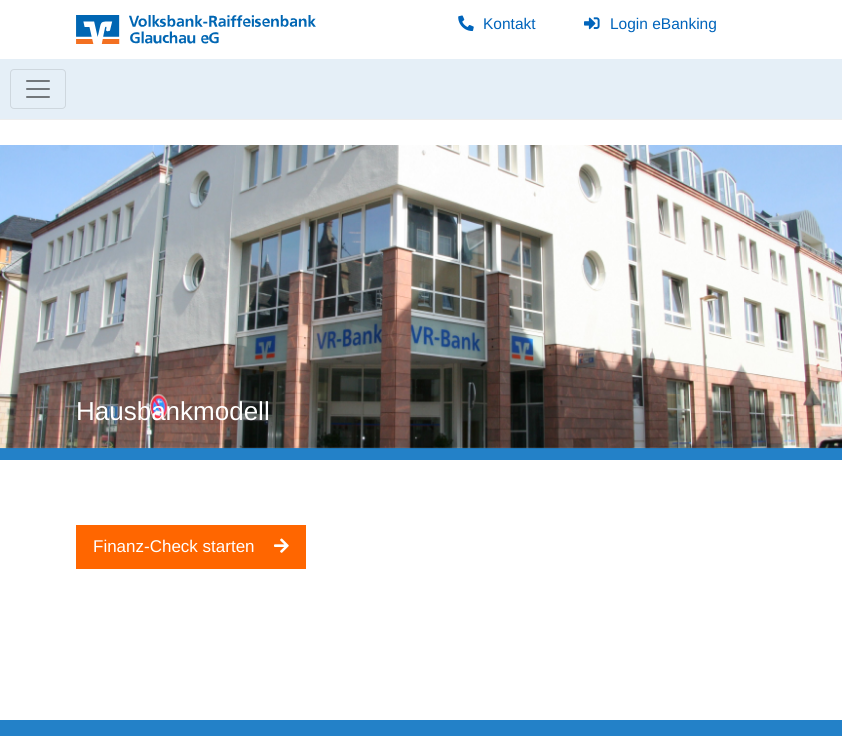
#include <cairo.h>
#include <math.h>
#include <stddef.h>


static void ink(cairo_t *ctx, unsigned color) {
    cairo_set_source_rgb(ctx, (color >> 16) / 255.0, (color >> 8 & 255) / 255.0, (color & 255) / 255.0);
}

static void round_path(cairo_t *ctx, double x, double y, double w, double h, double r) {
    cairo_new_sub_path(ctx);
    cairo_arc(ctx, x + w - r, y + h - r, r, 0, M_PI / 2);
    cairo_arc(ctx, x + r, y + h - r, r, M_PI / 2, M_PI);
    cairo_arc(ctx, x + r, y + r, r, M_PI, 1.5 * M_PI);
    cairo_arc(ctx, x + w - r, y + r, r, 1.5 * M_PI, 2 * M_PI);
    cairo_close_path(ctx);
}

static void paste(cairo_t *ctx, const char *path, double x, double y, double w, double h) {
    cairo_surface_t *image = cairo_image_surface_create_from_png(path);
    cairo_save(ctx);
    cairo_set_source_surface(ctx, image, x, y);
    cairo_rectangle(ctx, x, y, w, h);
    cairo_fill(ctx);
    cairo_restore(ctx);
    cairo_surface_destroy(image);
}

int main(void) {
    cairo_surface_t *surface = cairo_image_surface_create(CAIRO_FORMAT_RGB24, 842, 736);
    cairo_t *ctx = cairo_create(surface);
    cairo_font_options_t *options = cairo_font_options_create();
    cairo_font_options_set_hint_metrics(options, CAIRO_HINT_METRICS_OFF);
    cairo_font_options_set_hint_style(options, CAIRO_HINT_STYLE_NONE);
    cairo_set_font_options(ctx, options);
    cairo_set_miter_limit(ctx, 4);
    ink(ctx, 0xFFFFFF);
    cairo_paint(ctx);
    paste(ctx, "media/1.png", 76, 15, 240, 29);
    paste(ctx, "media/2.png", 458, 15, 16, 17);
    cairo_select_font_face(ctx, "Liberation Sans", CAIRO_FONT_SLANT_NORMAL, CAIRO_FONT_WEIGHT_NORMAL);
    cairo_set_font_size(ctx, 15.5);
    ink(ctx, 0x0064BB);
    cairo_move_to(ctx, 483, 29);
    cairo_show_text(ctx, "Kontakt");
    paste(ctx, "media/3.png", 584, 17, 16, 13);
    cairo_move_to(ctx, 610, 29);
    cairo_show_text(ctx, "Login eBanking");
    ink(ctx, 0xE5EFF7);
    cairo_rectangle(ctx, 0, 59, 842, 60);
    cairo_fill(ctx);
    round_path(ctx, 10.5, 69.5, 55, 39, 3.5);
    ink(ctx, 0xCED7DE);
    cairo_set_line_width(ctx, 1);
    cairo_stroke(ctx);
    paste(ctx, "media/4.png", 26, 80, 24, 18);
    ink(ctx, 0xEEEEEE);
    cairo_rectangle(ctx, 0, 119, 842, 1);
    cairo_fill(ctx);
    ink(ctx, 0x2381C8);
    cairo_rectangle(ctx, 0, 448, 842, 12);
    cairo_fill(ctx);
    paste(ctx, "media/5.png", 0, 145, 842, 304);
    cairo_set_font_size(ctx, 26);
    ink(ctx, 0xFFFFFF);
    cairo_move_to(ctx, 76, 420);
    cairo_show_text(ctx, "Hausbankmodell");
    ink(ctx, 0xFF6600);
    cairo_rectangle(ctx, 76, 525, 230, 44);
    cairo_fill(ctx);
    cairo_set_font_size(ctx, 17);
    ink(ctx, 0xFFFFFF);
    cairo_move_to(ctx, 93, 552);
    cairo_show_text(ctx, "Finanz-Check starten");
    paste(ctx, "media/6.png", 274, 538, 15, 15);
    ink(ctx, 0x2381C8);
    cairo_rectangle(ctx, 0, 720, 842, 16);
    cairo_fill(ctx);
    cairo_surface_write_to_png(surface, "image.png");
    cairo_font_options_destroy(options);
    cairo_destroy(ctx);
    cairo_surface_destroy(surface);
    return 0;
}
